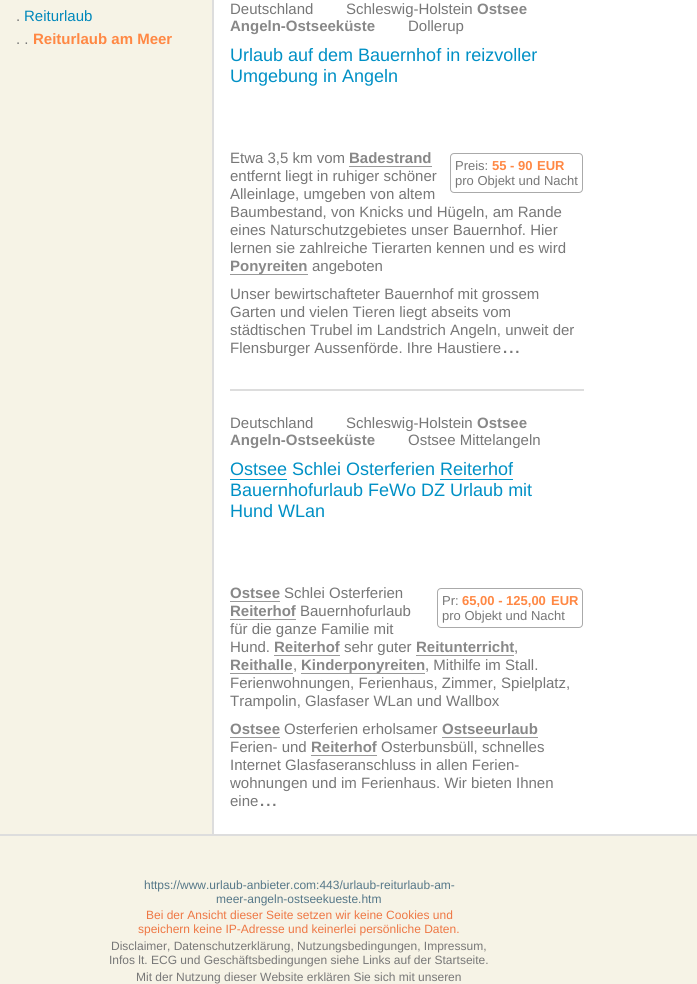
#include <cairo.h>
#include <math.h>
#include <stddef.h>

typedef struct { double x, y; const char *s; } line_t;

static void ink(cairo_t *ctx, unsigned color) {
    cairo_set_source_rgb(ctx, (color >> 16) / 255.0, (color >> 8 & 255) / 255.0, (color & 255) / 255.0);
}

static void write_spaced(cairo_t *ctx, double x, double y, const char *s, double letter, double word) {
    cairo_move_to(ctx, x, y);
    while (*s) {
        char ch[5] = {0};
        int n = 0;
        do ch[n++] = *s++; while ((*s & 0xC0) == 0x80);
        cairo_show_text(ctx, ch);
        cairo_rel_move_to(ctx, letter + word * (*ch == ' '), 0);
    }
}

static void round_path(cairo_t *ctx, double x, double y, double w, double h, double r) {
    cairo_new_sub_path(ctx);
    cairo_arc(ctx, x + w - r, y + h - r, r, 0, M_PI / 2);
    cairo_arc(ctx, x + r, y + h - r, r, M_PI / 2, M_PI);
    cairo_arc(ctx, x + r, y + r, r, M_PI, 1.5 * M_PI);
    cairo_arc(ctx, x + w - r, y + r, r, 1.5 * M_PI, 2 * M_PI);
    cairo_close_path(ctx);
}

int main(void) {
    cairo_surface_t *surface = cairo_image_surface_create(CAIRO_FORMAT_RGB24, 697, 984);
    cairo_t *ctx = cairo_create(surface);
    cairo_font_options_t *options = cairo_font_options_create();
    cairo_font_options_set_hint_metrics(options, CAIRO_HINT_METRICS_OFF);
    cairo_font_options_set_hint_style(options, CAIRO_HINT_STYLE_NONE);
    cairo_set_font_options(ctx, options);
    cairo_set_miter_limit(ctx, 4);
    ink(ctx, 0xF6F3E6);
    cairo_paint(ctx);
    ink(ctx, 0xFFFFFF);
    cairo_rectangle(ctx, 214, 0, 483, 834);
    cairo_fill(ctx);
    ink(ctx, 0xDDDDDD);
    cairo_rectangle(ctx, 0, 834, 697, 2);
    cairo_fill(ctx);
    cairo_select_font_face(ctx, "Liberation Sans", CAIRO_FONT_SLANT_NORMAL, CAIRO_FONT_WEIGHT_NORMAL);
    cairo_set_font_size(ctx, 15);
    ink(ctx, 0x777777);
    cairo_move_to(ctx, 16, 21);
    cairo_show_text(ctx, ".");
    ink(ctx, 0x0088BB);
    cairo_move_to(ctx, 24, 21);
    cairo_show_text(ctx, "Reiturlaub");
    ink(ctx, 0x777777);
    cairo_move_to(ctx, 16, 44);
    cairo_show_text(ctx, ". .");
    cairo_select_font_face(ctx, "Liberation Sans", CAIRO_FONT_SLANT_NORMAL, CAIRO_FONT_WEIGHT_BOLD);
    ink(ctx, 0xFF8844);
    cairo_move_to(ctx, 33, 44);
    cairo_show_text(ctx, "Reiturlaub am Meer");
    ink(ctx, 0xDDDDDD);
    cairo_rectangle(ctx, 212, 0, 2, 834);
    cairo_fill(ctx);
    cairo_select_font_face(ctx, "Liberation Sans", CAIRO_FONT_SLANT_NORMAL, CAIRO_FONT_WEIGHT_NORMAL);
    ink(ctx, 0x777777);
    cairo_move_to(ctx, 230, 14);
    cairo_show_text(ctx, "Deutschland");
    cairo_move_to(ctx, 346, 14);
    cairo_show_text(ctx, "Schleswig-Holstein");
    cairo_select_font_face(ctx, "Liberation Sans", CAIRO_FONT_SLANT_NORMAL, CAIRO_FONT_WEIGHT_BOLD);
    ink(ctx, 0x888888);
    cairo_move_to(ctx, 477, 14);
    cairo_show_text(ctx, "Ostsee");
    cairo_move_to(ctx, 230, 31);
    cairo_show_text(ctx, "Angeln-Ostseeküste");
    cairo_select_font_face(ctx, "Liberation Sans", CAIRO_FONT_SLANT_NORMAL, CAIRO_FONT_WEIGHT_NORMAL);
    ink(ctx, 0x777777);
    cairo_move_to(ctx, 408, 31);
    cairo_show_text(ctx, "Dollerup");
    cairo_set_font_size(ctx, 18);
    ink(ctx, 0x0090C5);
    cairo_move_to(ctx, 230, 61);
    cairo_show_text(ctx, "Urlaub auf dem Bauernhof in reizvoller");
    cairo_move_to(ctx, 230, 82);
    cairo_show_text(ctx, "Umgebung in Angeln");
    cairo_set_font_size(ctx, 15);
    ink(ctx, 0x777777);
    cairo_move_to(ctx, 230, 163);
    cairo_show_text(ctx, "Etwa 3,5 km vom");
    cairo_select_font_face(ctx, "Liberation Sans", CAIRO_FONT_SLANT_NORMAL, CAIRO_FONT_WEIGHT_BOLD);
    ink(ctx, 0x888888);
    cairo_move_to(ctx, 349, 163);
    cairo_show_text(ctx, "Badestrand");
    ink(ctx, 0x999999);
    cairo_rectangle(ctx, 349, 166, 83, 1);
    cairo_fill(ctx);
    cairo_select_font_face(ctx, "Liberation Sans", CAIRO_FONT_SLANT_NORMAL, CAIRO_FONT_WEIGHT_NORMAL);
    ink(ctx, 0x777777);
    {
        static const line_t items[] = {
            {230, 181, "entfernt liegt in ruhiger schöner"},
            {230, 199, "Alleinlage, umgeben von altem"},
            {230, 217, "Baumbestand, von Knicks und Hügeln, am Rande"},
            {230, 235, "eines Naturschutzgebietes unser Bauernhof. Hier"},
            {230, 253, "lernen sie zahlreiche Tierarten kennen und es wird"},
        };
        for (size_t i = 0; i < sizeof items / sizeof *items; i++) {
            cairo_move_to(ctx, items[i].x, items[i].y);
            cairo_show_text(ctx, items[i].s);
        }
    }
    ink(ctx, 0x999999);
    cairo_rectangle(ctx, 230, 274, 78, 1);
    cairo_fill(ctx);
    cairo_select_font_face(ctx, "Liberation Sans", CAIRO_FONT_SLANT_NORMAL, CAIRO_FONT_WEIGHT_BOLD);
    ink(ctx, 0x888888);
    cairo_move_to(ctx, 230, 271);
    cairo_show_text(ctx, "Ponyreiten");
    cairo_select_font_face(ctx, "Liberation Sans", CAIRO_FONT_SLANT_NORMAL, CAIRO_FONT_WEIGHT_NORMAL);
    ink(ctx, 0x777777);
    cairo_move_to(ctx, 312, 271);
    cairo_show_text(ctx, "angeboten");
    round_path(ctx, 450.5, 153.5, 132, 39, 3.5);
    ink(ctx, 0xAAAAAA);
    cairo_set_line_width(ctx, 1);
    cairo_stroke(ctx);
    cairo_set_font_size(ctx, 13);
    ink(ctx, 0x777777);
    cairo_move_to(ctx, 455, 170);
    cairo_show_text(ctx, "Preis:");
    cairo_select_font_face(ctx, "Liberation Sans", CAIRO_FONT_SLANT_NORMAL, CAIRO_FONT_WEIGHT_BOLD);
    ink(ctx, 0xFF8844);
    cairo_move_to(ctx, 492, 170);
    cairo_show_text(ctx, "55 - 90");
    cairo_move_to(ctx, 537, 170);
    cairo_show_text(ctx, "EUR");
    cairo_select_font_face(ctx, "Liberation Sans", CAIRO_FONT_SLANT_NORMAL, CAIRO_FONT_WEIGHT_NORMAL);
    ink(ctx, 0x777777);
    cairo_move_to(ctx, 455, 185);
    cairo_show_text(ctx, "pro Objekt und Nacht");
    cairo_set_font_size(ctx, 15);
    {
        static const line_t items[] = {
            {230, 299, "Unser bewirtschafteter Bauernhof mit grossem"},
            {230, 317, "Garten und vielen Tieren liegt abseits vom"},
            {230, 335, "städtischen Trubel im Landstrich Angeln, unweit der"},
            {230, 353, "Flensburger Aussenförde. Ihre Haustiere"},
        };
        for (size_t i = 0; i < sizeof items / sizeof *items; i++) {
            cairo_move_to(ctx, items[i].x, items[i].y);
            cairo_show_text(ctx, items[i].s);
        }
    }
    cairo_select_font_face(ctx, "Liberation Sans", CAIRO_FONT_SLANT_NORMAL, CAIRO_FONT_WEIGHT_BOLD);
    write_spaced(ctx, 503, 353, "...", 2, 0);
    ink(ctx, 0xDDDDDD);
    cairo_rectangle(ctx, 230, 389, 354, 2);
    cairo_fill(ctx);
    cairo_select_font_face(ctx, "Liberation Sans", CAIRO_FONT_SLANT_NORMAL, CAIRO_FONT_WEIGHT_NORMAL);
    ink(ctx, 0x777777);
    cairo_move_to(ctx, 230, 428);
    cairo_show_text(ctx, "Deutschland");
    cairo_move_to(ctx, 346, 428);
    cairo_show_text(ctx, "Schleswig-Holstein");
    cairo_select_font_face(ctx, "Liberation Sans", CAIRO_FONT_SLANT_NORMAL, CAIRO_FONT_WEIGHT_BOLD);
    ink(ctx, 0x888888);
    cairo_move_to(ctx, 477, 428);
    cairo_show_text(ctx, "Ostsee");
    cairo_move_to(ctx, 230, 445);
    cairo_show_text(ctx, "Angeln-Ostseeküste");
    cairo_select_font_face(ctx, "Liberation Sans", CAIRO_FONT_SLANT_NORMAL, CAIRO_FONT_WEIGHT_NORMAL);
    ink(ctx, 0x777777);
    cairo_move_to(ctx, 408, 445);
    cairo_show_text(ctx, "Ostsee Mittelangeln");
    cairo_set_font_size(ctx, 18);
    ink(ctx, 0x0090C5);
    cairo_move_to(ctx, 230, 475);
    cairo_show_text(ctx, "Ostsee Schlei Osterferien Reiterhof");
    cairo_move_to(ctx, 230, 496);
    cairo_show_text(ctx, "Bauernhofurlaub FeWo DZ Urlaub mit");
    ink(ctx, 0x0099CC);
    cairo_rectangle(ctx, 230, 479, 57, 1);
    cairo_fill(ctx);
    cairo_rectangle(ctx, 440, 479, 73, 1);
    cairo_fill(ctx);
    ink(ctx, 0x0090C5);
    cairo_move_to(ctx, 230, 517);
    cairo_show_text(ctx, "Hund WLan");
    cairo_select_font_face(ctx, "Liberation Sans", CAIRO_FONT_SLANT_NORMAL, CAIRO_FONT_WEIGHT_BOLD);
    cairo_set_font_size(ctx, 15);
    ink(ctx, 0x888888);
    cairo_move_to(ctx, 230, 598);
    cairo_show_text(ctx, "Ostsee");
    ink(ctx, 0x999999);
    cairo_rectangle(ctx, 230, 601, 50, 1);
    cairo_fill(ctx);
    cairo_select_font_face(ctx, "Liberation Sans", CAIRO_FONT_SLANT_NORMAL, CAIRO_FONT_WEIGHT_NORMAL);
    ink(ctx, 0x777777);
    cairo_move_to(ctx, 284, 598);
    cairo_show_text(ctx, "Schlei Osterferien");
    cairo_select_font_face(ctx, "Liberation Sans", CAIRO_FONT_SLANT_NORMAL, CAIRO_FONT_WEIGHT_BOLD);
    ink(ctx, 0x888888);
    cairo_move_to(ctx, 230, 616);
    cairo_show_text(ctx, "Reiterhof");
    ink(ctx, 0x999999);
    cairo_rectangle(ctx, 230, 619, 66, 1);
    cairo_fill(ctx);
    cairo_select_font_face(ctx, "Liberation Sans", CAIRO_FONT_SLANT_NORMAL, CAIRO_FONT_WEIGHT_NORMAL);
    ink(ctx, 0x777777);
    {
        static const line_t items[] = {
            {300, 616, "Bauernhofurlaub"},
            {230, 634, "für die ganze Familie mit"},
            {230, 652, "Hund."},
        };
        for (size_t i = 0; i < sizeof items / sizeof *items; i++) {
            cairo_move_to(ctx, items[i].x, items[i].y);
            cairo_show_text(ctx, items[i].s);
        }
    }
    cairo_select_font_face(ctx, "Liberation Sans", CAIRO_FONT_SLANT_NORMAL, CAIRO_FONT_WEIGHT_BOLD);
    ink(ctx, 0x888888);
    cairo_move_to(ctx, 274, 652);
    cairo_show_text(ctx, "Reiterhof");
    ink(ctx, 0x999999);
    cairo_rectangle(ctx, 274, 655, 66, 1);
    cairo_fill(ctx);
    cairo_select_font_face(ctx, "Liberation Sans", CAIRO_FONT_SLANT_NORMAL, CAIRO_FONT_WEIGHT_NORMAL);
    ink(ctx, 0x777777);
    cairo_move_to(ctx, 344, 652);
    cairo_show_text(ctx, "sehr guter");
    cairo_select_font_face(ctx, "Liberation Sans", CAIRO_FONT_SLANT_NORMAL, CAIRO_FONT_WEIGHT_BOLD);
    ink(ctx, 0x888888);
    cairo_move_to(ctx, 416, 652);
    cairo_show_text(ctx, "Reitunterricht");
    ink(ctx, 0x999999);
    cairo_rectangle(ctx, 416, 655, 98, 1);
    cairo_fill(ctx);
    cairo_select_font_face(ctx, "Liberation Sans", CAIRO_FONT_SLANT_NORMAL, CAIRO_FONT_WEIGHT_NORMAL);
    ink(ctx, 0x777777);
    cairo_move_to(ctx, 514, 652);
    cairo_show_text(ctx, ",");
    cairo_select_font_face(ctx, "Liberation Sans", CAIRO_FONT_SLANT_NORMAL, CAIRO_FONT_WEIGHT_BOLD);
    ink(ctx, 0x888888);
    cairo_move_to(ctx, 230, 670);
    cairo_show_text(ctx, "Reithalle");
    ink(ctx, 0x999999);
    cairo_rectangle(ctx, 230, 673, 63, 1);
    cairo_fill(ctx);
    cairo_select_font_face(ctx, "Liberation Sans", CAIRO_FONT_SLANT_NORMAL, CAIRO_FONT_WEIGHT_NORMAL);
    ink(ctx, 0x777777);
    cairo_move_to(ctx, 293, 670);
    cairo_show_text(ctx, ",");
    ink(ctx, 0x999999);
    cairo_rectangle(ctx, 301, 673, 124, 1);
    cairo_fill(ctx);
    cairo_select_font_face(ctx, "Liberation Sans", CAIRO_FONT_SLANT_NORMAL, CAIRO_FONT_WEIGHT_BOLD);
    ink(ctx, 0x888888);
    cairo_move_to(ctx, 301, 670);
    cairo_show_text(ctx, "Kinderponyreiten");
    cairo_select_font_face(ctx, "Liberation Sans", CAIRO_FONT_SLANT_NORMAL, CAIRO_FONT_WEIGHT_NORMAL);
    ink(ctx, 0x777777);
    {
        static const line_t items[] = {
            {425, 670, ", Mithilfe im Stall."},
            {230, 688, "Ferienwohnungen, Ferienhaus, Zimmer, Spielplatz,"},
            {230, 706, "Trampolin, Glasfaser WLan und Wallbox"},
        };
        for (size_t i = 0; i < sizeof items / sizeof *items; i++) {
            cairo_move_to(ctx, items[i].x, items[i].y);
            cairo_show_text(ctx, items[i].s);
        }
    }
    round_path(ctx, 437.5, 588.5, 145, 39, 3.5);
    ink(ctx, 0xAAAAAA);
    cairo_stroke(ctx);
    cairo_set_font_size(ctx, 13);
    ink(ctx, 0x777777);
    cairo_move_to(ctx, 442, 605);
    cairo_show_text(ctx, "Pr:");
    cairo_select_font_face(ctx, "Liberation Sans", CAIRO_FONT_SLANT_NORMAL, CAIRO_FONT_WEIGHT_BOLD);
    ink(ctx, 0xFF8844);
    cairo_move_to(ctx, 462, 605);
    cairo_show_text(ctx, "65,00 - 125,00");
    cairo_move_to(ctx, 551, 605);
    cairo_show_text(ctx, "EUR");
    cairo_select_font_face(ctx, "Liberation Sans", CAIRO_FONT_SLANT_NORMAL, CAIRO_FONT_WEIGHT_NORMAL);
    ink(ctx, 0x777777);
    cairo_move_to(ctx, 442, 620);
    cairo_show_text(ctx, "pro Objekt und Nacht");
    cairo_select_font_face(ctx, "Liberation Sans", CAIRO_FONT_SLANT_NORMAL, CAIRO_FONT_WEIGHT_BOLD);
    cairo_set_font_size(ctx, 15);
    ink(ctx, 0x888888);
    cairo_move_to(ctx, 230, 734);
    cairo_show_text(ctx, "Ostsee");
    ink(ctx, 0x999999);
    cairo_rectangle(ctx, 230, 737, 50, 1);
    cairo_fill(ctx);
    cairo_select_font_face(ctx, "Liberation Sans", CAIRO_FONT_SLANT_NORMAL, CAIRO_FONT_WEIGHT_NORMAL);
    ink(ctx, 0x777777);
    cairo_move_to(ctx, 284, 734);
    cairo_show_text(ctx, "Osterferien erholsamer");
    cairo_select_font_face(ctx, "Liberation Sans", CAIRO_FONT_SLANT_NORMAL, CAIRO_FONT_WEIGHT_BOLD);
    ink(ctx, 0x888888);
    cairo_move_to(ctx, 442, 734);
    cairo_show_text(ctx, "Ostseeurlaub");
    ink(ctx, 0x999999);
    cairo_rectangle(ctx, 442, 737, 96, 1);
    cairo_fill(ctx);
    cairo_select_font_face(ctx, "Liberation Sans", CAIRO_FONT_SLANT_NORMAL, CAIRO_FONT_WEIGHT_NORMAL);
    ink(ctx, 0x777777);
    cairo_move_to(ctx, 230, 752);
    cairo_show_text(ctx, "Ferien- und");
    cairo_select_font_face(ctx, "Liberation Sans", CAIRO_FONT_SLANT_NORMAL, CAIRO_FONT_WEIGHT_BOLD);
    ink(ctx, 0x888888);
    cairo_move_to(ctx, 311, 752);
    cairo_show_text(ctx, "Reiterhof");
    ink(ctx, 0x999999);
    cairo_rectangle(ctx, 311, 755, 66, 1);
    cairo_fill(ctx);
    cairo_select_font_face(ctx, "Liberation Sans", CAIRO_FONT_SLANT_NORMAL, CAIRO_FONT_WEIGHT_NORMAL);
    ink(ctx, 0x777777);
    {
        static const line_t items[] = {
            {381, 752, "Osterbunsbüll, schnelles"},
            {230, 770, "Internet Glasfaseranschluss in allen Ferien-"},
            {230, 788, "wohnungen und im Ferienhaus. Wir bieten Ihnen"},
            {230, 806, "eine"},
        };
        for (size_t i = 0; i < sizeof items / sizeof *items; i++) {
            cairo_move_to(ctx, items[i].x, items[i].y);
            cairo_show_text(ctx, items[i].s);
        }
    }
    cairo_select_font_face(ctx, "Liberation Sans", CAIRO_FONT_SLANT_NORMAL, CAIRO_FONT_WEIGHT_BOLD);
    write_spaced(ctx, 260, 806, "...", 2, 0);
    cairo_select_font_face(ctx, "Liberation Sans", CAIRO_FONT_SLANT_NORMAL, CAIRO_FONT_WEIGHT_NORMAL);
    cairo_set_font_size(ctx, 12);
    ink(ctx, 0x557788);
    cairo_move_to(ctx, 144, 889);
    cairo_show_text(ctx, "https://www.urlaub-anbieter.com:443/urlaub-reiturlaub-am-");
    cairo_move_to(ctx, 216, 903);
    cairo_show_text(ctx, "meer-angeln-ostseekueste.htm");
    ink(ctx, 0xEE7744);
    cairo_move_to(ctx, 146, 919);
    cairo_show_text(ctx, "Bei der Ansicht dieser Seite setzen wir keine Cookies und");
    cairo_move_to(ctx, 138, 933);
    cairo_show_text(ctx, "speichern keine IP-Adresse und keinerlei persönliche Daten.");
    ink(ctx, 0x777777);
    {
        static const line_t items[] = {
            {111, 950, "Disclaimer, Datenschutzerklärung, Nutzungsbedingungen, Impressum,"},
            {109, 964, "Infos lt. ECG und Geschäftsbedingungen siehe Links auf der Startseite."},
            {136, 981, "Mit der Nutzung dieser Website erklären Sie sich mit unseren"},
        };
        for (size_t i = 0; i < sizeof items / sizeof *items; i++) {
            cairo_move_to(ctx, items[i].x, items[i].y);
            cairo_show_text(ctx, items[i].s);
        }
    }
    cairo_surface_write_to_png(surface, "image.png");
    cairo_font_options_destroy(options);
    cairo_destroy(ctx);
    cairo_surface_destroy(surface);
    return 0;
}
